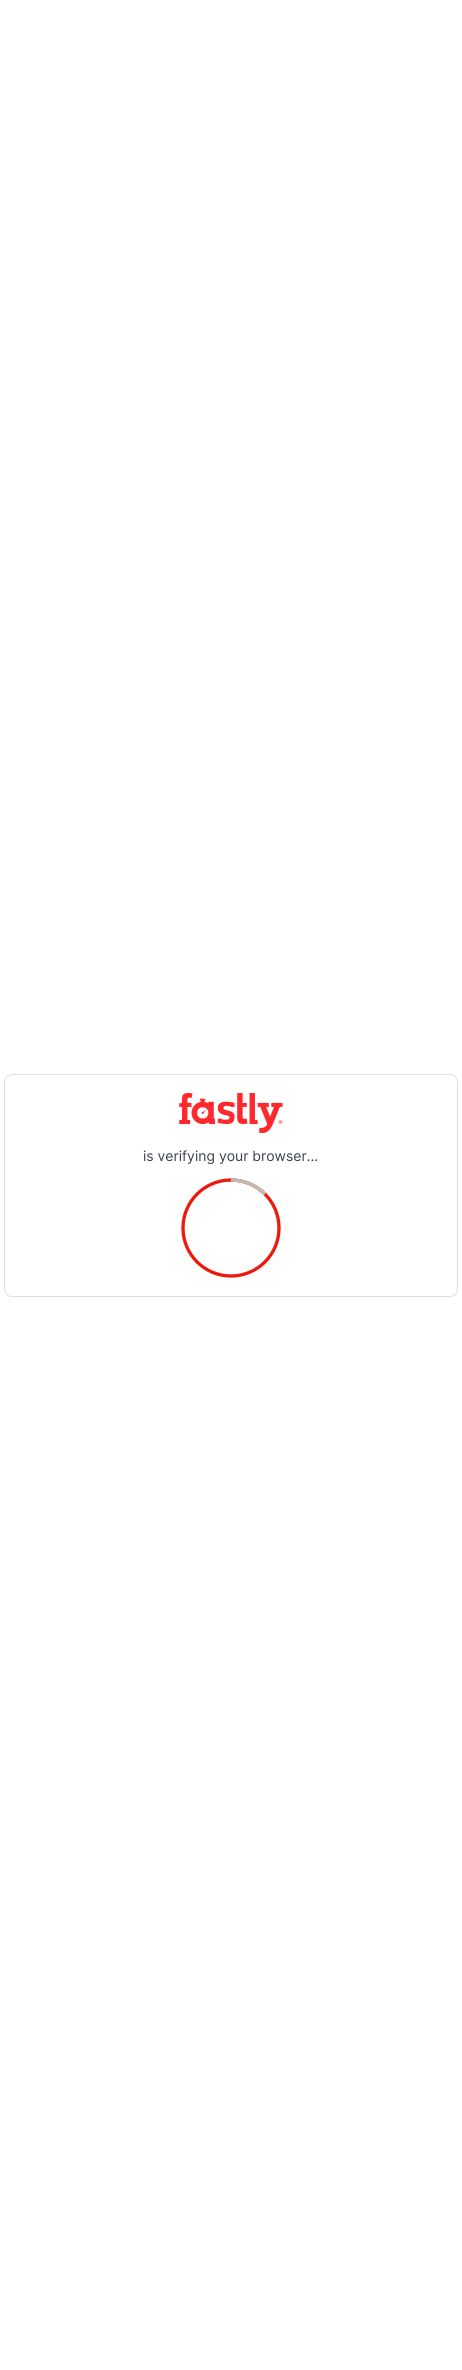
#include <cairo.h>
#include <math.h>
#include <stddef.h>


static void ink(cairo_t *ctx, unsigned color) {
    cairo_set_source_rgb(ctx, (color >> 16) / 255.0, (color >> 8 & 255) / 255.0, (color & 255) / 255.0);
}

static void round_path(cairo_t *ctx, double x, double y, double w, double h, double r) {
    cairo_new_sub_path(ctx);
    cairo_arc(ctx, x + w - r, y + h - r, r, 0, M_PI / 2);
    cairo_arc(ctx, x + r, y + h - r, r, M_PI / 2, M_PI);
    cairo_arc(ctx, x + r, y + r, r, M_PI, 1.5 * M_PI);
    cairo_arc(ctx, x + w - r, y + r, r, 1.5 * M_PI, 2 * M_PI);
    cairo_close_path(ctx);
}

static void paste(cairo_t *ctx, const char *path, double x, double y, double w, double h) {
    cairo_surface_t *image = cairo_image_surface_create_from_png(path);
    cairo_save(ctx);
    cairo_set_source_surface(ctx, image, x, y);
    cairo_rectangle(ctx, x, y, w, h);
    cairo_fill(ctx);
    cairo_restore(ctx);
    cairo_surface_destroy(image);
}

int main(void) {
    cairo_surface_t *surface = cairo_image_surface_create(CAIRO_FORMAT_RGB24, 462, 2370);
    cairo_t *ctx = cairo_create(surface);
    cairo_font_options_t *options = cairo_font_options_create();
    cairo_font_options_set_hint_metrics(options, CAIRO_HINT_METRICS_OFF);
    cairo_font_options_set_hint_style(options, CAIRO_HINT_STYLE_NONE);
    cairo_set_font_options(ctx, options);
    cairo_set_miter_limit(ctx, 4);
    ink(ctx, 0xFFFFFF);
    cairo_paint(ctx);
    round_path(ctx, 4.5, 1074.5, 453, 222, 7.5);
    ink(ctx, 0xDCE0E4);
    cairo_set_line_width(ctx, 1);
    cairo_stroke(ctx);
    paste(ctx, "media/1.png", 179, 1093, 104, 40);
    cairo_select_font_face(ctx, "Inter", CAIRO_FONT_SLANT_NORMAL, CAIRO_FONT_WEIGHT_NORMAL);
    cairo_set_font_size(ctx, 14);
    ink(ctx, 0x3A424A);
    cairo_move_to(ctx, 143, 1161);
    cairo_show_text(ctx, "is verifying your browser...");
    cairo_new_path(ctx);
    cairo_move_to(ctx, 183, 1228);
    cairo_curve_to(ctx, 183, 1201.5, 204.5, 1180, 231, 1180);
    cairo_curve_to(ctx, 257.5, 1180, 279, 1201.5, 279, 1228);
    cairo_curve_to(ctx, 279, 1254.5, 257.5, 1276, 231, 1276);
    cairo_curve_to(ctx, 204.5, 1276, 183, 1254.5, 183, 1228);
    cairo_close_path(ctx);
    ink(ctx, 0xEB1A0C);
    cairo_set_line_width(ctx, 3.3);
    cairo_stroke(ctx);
    cairo_new_path(ctx);
    cairo_move_to(ctx, 265, 1194);
    cairo_curve_to(ctx, 256, 1185, 243.5, 1180, 231, 1180);
    ink(ctx, 0xC2BAB5);
    cairo_stroke(ctx);
    cairo_surface_write_to_png(surface, "image.png");
    cairo_font_options_destroy(options);
    cairo_destroy(ctx);
    cairo_surface_destroy(surface);
    return 0;
}
